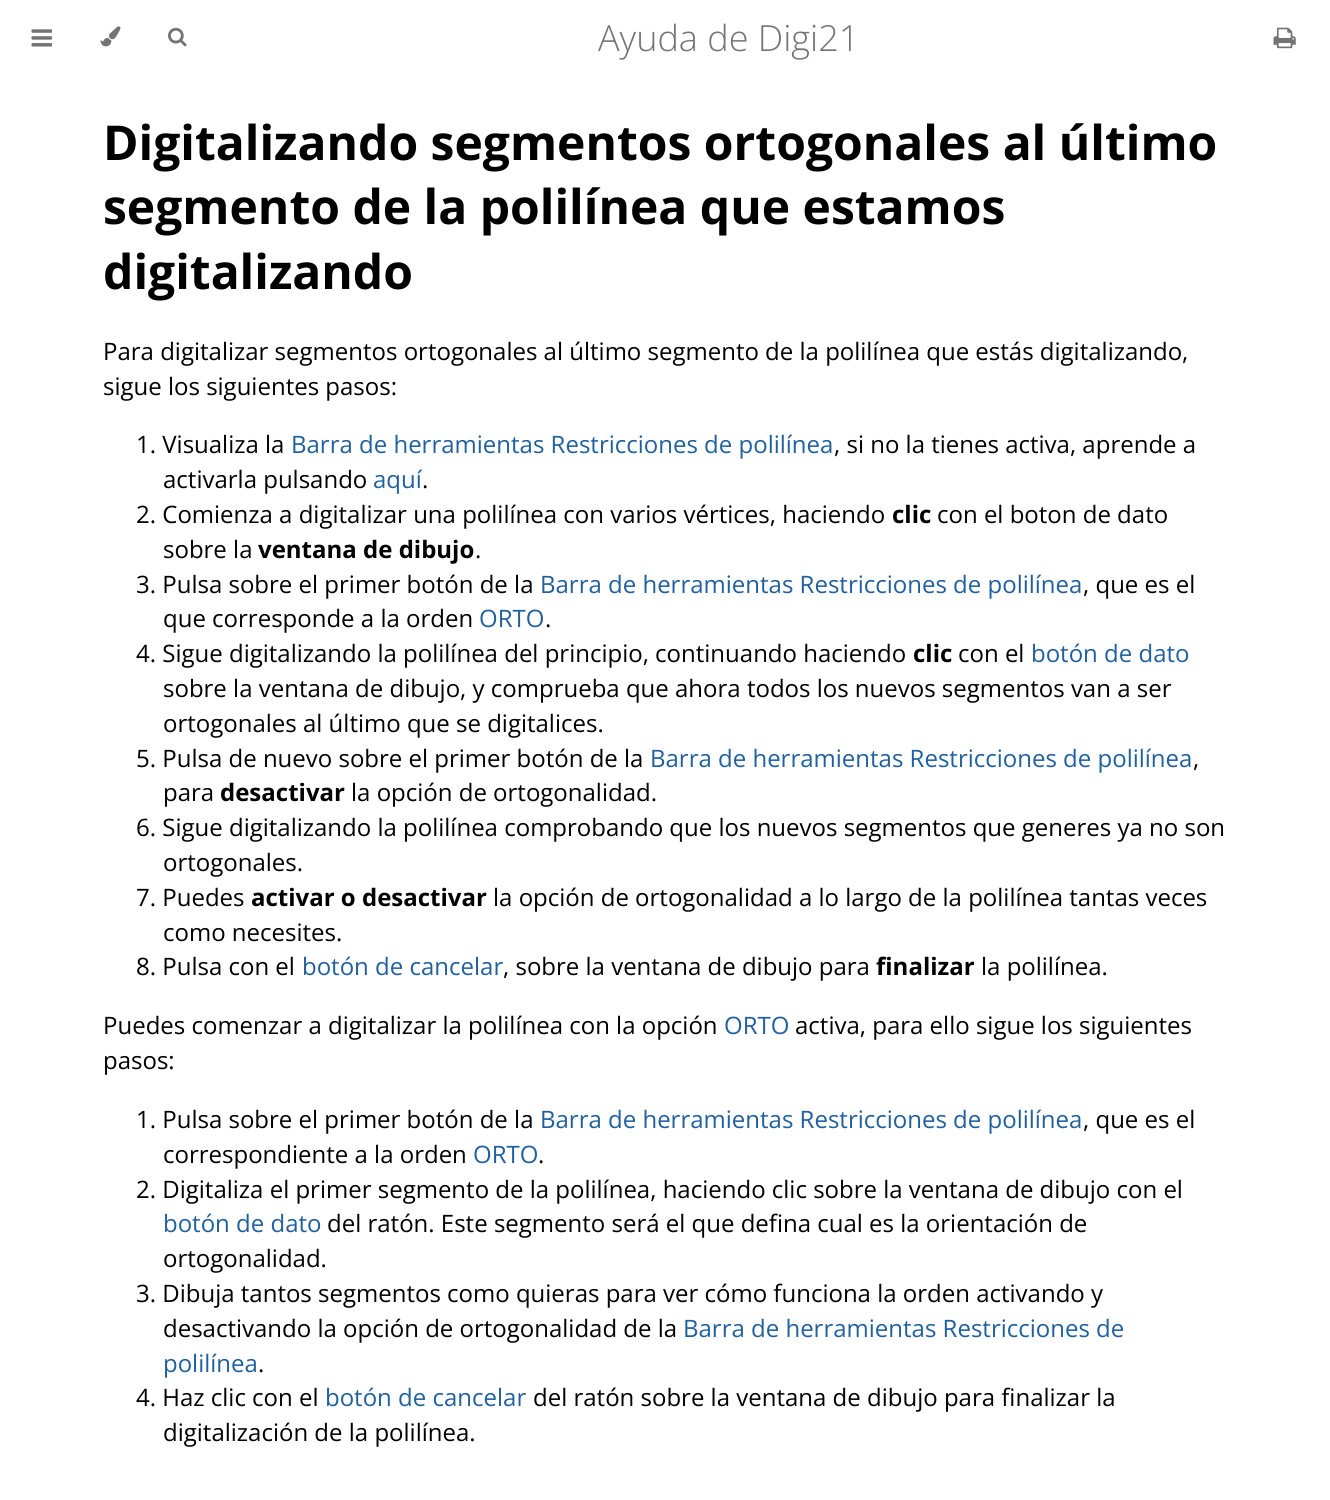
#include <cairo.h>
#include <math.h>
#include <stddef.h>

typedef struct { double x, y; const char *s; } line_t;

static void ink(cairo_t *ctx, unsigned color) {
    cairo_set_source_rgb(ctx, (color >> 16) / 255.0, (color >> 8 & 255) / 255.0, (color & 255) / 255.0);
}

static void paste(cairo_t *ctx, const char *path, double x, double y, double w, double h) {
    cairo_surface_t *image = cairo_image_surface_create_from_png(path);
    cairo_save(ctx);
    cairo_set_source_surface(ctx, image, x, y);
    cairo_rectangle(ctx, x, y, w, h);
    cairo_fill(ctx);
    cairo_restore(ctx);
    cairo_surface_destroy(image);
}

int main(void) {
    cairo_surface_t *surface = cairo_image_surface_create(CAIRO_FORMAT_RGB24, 1330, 1500);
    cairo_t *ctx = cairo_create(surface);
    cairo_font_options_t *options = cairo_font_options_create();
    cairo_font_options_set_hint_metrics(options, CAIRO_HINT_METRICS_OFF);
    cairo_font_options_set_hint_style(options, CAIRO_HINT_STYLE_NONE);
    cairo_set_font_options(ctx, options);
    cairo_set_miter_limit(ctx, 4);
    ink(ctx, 0xFFFFFF);
    cairo_paint(ctx);
    paste(ctx, "media/1.png", 31, 29, 22, 18);
    paste(ctx, "media/2.png", 100, 26, 21, 21);
    paste(ctx, "media/3.png", 168, 27, 19, 20);
    cairo_select_font_face(ctx, "Open Sans Light", CAIRO_FONT_SLANT_NORMAL, CAIRO_FONT_WEIGHT_NORMAL);
    cairo_set_font_size(ctx, 36);
    ink(ctx, 0x747474);
    cairo_move_to(ctx, 598, 51);
    cairo_show_text(ctx, "Ayuda de Digi21");
    paste(ctx, "media/4.png", 1273, 27, 23, 22);
    cairo_select_font_face(ctx, "Open Sans", CAIRO_FONT_SLANT_NORMAL, CAIRO_FONT_WEIGHT_BOLD);
    cairo_set_font_size(ctx, 48);
    ink(ctx, 0x000000);
    {
        static const line_t items[] = {
            {103, 160, "Digitalizando segmentos ortogonales al último"},
            {103, 224, "segmento de la polilínea que estamos"},
            {103, 289, "digitalizando"},
        };
        for (size_t i = 0; i < sizeof items / sizeof *items; i++) {
            cairo_move_to(ctx, items[i].x, items[i].y);
            cairo_show_text(ctx, items[i].s);
        }
    }
    cairo_select_font_face(ctx, "Open Sans", CAIRO_FONT_SLANT_NORMAL, CAIRO_FONT_WEIGHT_NORMAL);
    cairo_set_font_size(ctx, 24);
    {
        static const line_t items[] = {
            {103, 360, "Para digitalizar segmentos ortogonales al último segmento de la polilínea que estás digitalizando,"},
            {103, 395, "sigue los siguientes pasos:"},
            {136, 453, "1. Visualiza la"},
        };
        for (size_t i = 0; i < sizeof items / sizeof *items; i++) {
            cairo_move_to(ctx, items[i].x, items[i].y);
            cairo_show_text(ctx, items[i].s);
        }
    }
    ink(ctx, 0x20609F);
    cairo_move_to(ctx, 291, 453);
    cairo_show_text(ctx, "Barra de herramientas Restricciones de polilínea");
    ink(ctx, 0x000000);
    cairo_move_to(ctx, 834, 453);
    cairo_show_text(ctx, ", si no la tienes activa, aprende a");
    cairo_move_to(ctx, 163, 488);
    cairo_show_text(ctx, "activarla pulsando");
    ink(ctx, 0x20609F);
    cairo_move_to(ctx, 373, 488);
    cairo_show_text(ctx, "aquí");
    ink(ctx, 0x000000);
    cairo_move_to(ctx, 422, 488);
    cairo_show_text(ctx, ".");
    cairo_move_to(ctx, 136, 523);
    cairo_show_text(ctx, "2. Comienza a digitalizar una polilínea con varios vértices, haciendo");
    cairo_select_font_face(ctx, "Open Sans", CAIRO_FONT_SLANT_NORMAL, CAIRO_FONT_WEIGHT_BOLD);
    cairo_move_to(ctx, 892, 523);
    cairo_show_text(ctx, "clic");
    cairo_select_font_face(ctx, "Open Sans", CAIRO_FONT_SLANT_NORMAL, CAIRO_FONT_WEIGHT_NORMAL);
    cairo_move_to(ctx, 937, 523);
    cairo_show_text(ctx, "con el boton de dato");
    cairo_move_to(ctx, 163, 558);
    cairo_show_text(ctx, "sobre la");
    cairo_select_font_face(ctx, "Open Sans", CAIRO_FONT_SLANT_NORMAL, CAIRO_FONT_WEIGHT_BOLD);
    cairo_move_to(ctx, 258, 558);
    cairo_show_text(ctx, "ventana de dibujo");
    cairo_select_font_face(ctx, "Open Sans", CAIRO_FONT_SLANT_NORMAL, CAIRO_FONT_WEIGHT_NORMAL);
    cairo_move_to(ctx, 475, 558);
    cairo_show_text(ctx, ".");
    cairo_move_to(ctx, 136, 593);
    cairo_show_text(ctx, "3. Pulsa sobre el primer botón de la");
    ink(ctx, 0x20609F);
    cairo_move_to(ctx, 540, 593);
    cairo_show_text(ctx, "Barra de herramientas Restricciones de polilínea");
    ink(ctx, 0x000000);
    cairo_move_to(ctx, 1083, 593);
    cairo_show_text(ctx, ", que es el");
    cairo_move_to(ctx, 163, 627);
    cairo_show_text(ctx, "que corresponde a la orden");
    ink(ctx, 0x20609F);
    cairo_move_to(ctx, 479, 627);
    cairo_show_text(ctx, "ORTO");
    ink(ctx, 0x000000);
    cairo_move_to(ctx, 545, 627);
    cairo_show_text(ctx, ".");
    cairo_move_to(ctx, 136, 662);
    cairo_show_text(ctx, "4. Sigue digitalizando la polilínea del principio, continuando haciendo");
    cairo_select_font_face(ctx, "Open Sans", CAIRO_FONT_SLANT_NORMAL, CAIRO_FONT_WEIGHT_BOLD);
    cairo_move_to(ctx, 913, 662);
    cairo_show_text(ctx, "clic");
    cairo_select_font_face(ctx, "Open Sans", CAIRO_FONT_SLANT_NORMAL, CAIRO_FONT_WEIGHT_NORMAL);
    cairo_move_to(ctx, 958, 662);
    cairo_show_text(ctx, "con el");
    ink(ctx, 0x20609F);
    cairo_move_to(ctx, 1031, 662);
    cairo_show_text(ctx, "botón de dato");
    ink(ctx, 0x000000);
    {
        static const line_t items[] = {
            {163, 697, "sobre la ventana de dibujo, y comprueba que ahora todos los nuevos segmentos van a ser"},
            {163, 732, "ortogonales al último que se digitalices."},
            {136, 767, "5. Pulsa de nuevo sobre el primer botón de la"},
        };
        for (size_t i = 0; i < sizeof items / sizeof *items; i++) {
            cairo_move_to(ctx, items[i].x, items[i].y);
            cairo_show_text(ctx, items[i].s);
        }
    }
    ink(ctx, 0x20609F);
    cairo_move_to(ctx, 650, 767);
    cairo_show_text(ctx, "Barra de herramientas Restricciones de polilínea");
    ink(ctx, 0x000000);
    cairo_move_to(ctx, 1193, 767);
    cairo_show_text(ctx, ",");
    cairo_move_to(ctx, 163, 801);
    cairo_show_text(ctx, "para");
    cairo_select_font_face(ctx, "Open Sans", CAIRO_FONT_SLANT_NORMAL, CAIRO_FONT_WEIGHT_BOLD);
    cairo_move_to(ctx, 220, 801);
    cairo_show_text(ctx, "desactivar");
    cairo_select_font_face(ctx, "Open Sans", CAIRO_FONT_SLANT_NORMAL, CAIRO_FONT_WEIGHT_NORMAL);
    {
        static const line_t items[] = {
            {351, 801, "la opción de ortogonalidad."},
            {136, 836, "6. Sigue digitalizando la polilínea comprobando que los nuevos segmentos que generes ya no son"},
            {163, 871, "ortogonales."},
            {136, 906, "7. Puedes"},
        };
        for (size_t i = 0; i < sizeof items / sizeof *items; i++) {
            cairo_move_to(ctx, items[i].x, items[i].y);
            cairo_show_text(ctx, items[i].s);
        }
    }
    cairo_select_font_face(ctx, "Open Sans", CAIRO_FONT_SLANT_NORMAL, CAIRO_FONT_WEIGHT_BOLD);
    cairo_move_to(ctx, 251, 906);
    cairo_show_text(ctx, "activar o desactivar");
    cairo_select_font_face(ctx, "Open Sans", CAIRO_FONT_SLANT_NORMAL, CAIRO_FONT_WEIGHT_NORMAL);
    {
        static const line_t items[] = {
            {493, 906, "la opción de ortogonalidad a lo largo de la polilínea tantas veces"},
            {163, 941, "como necesites."},
            {136, 975, "8. Pulsa con el"},
        };
        for (size_t i = 0; i < sizeof items / sizeof *items; i++) {
            cairo_move_to(ctx, items[i].x, items[i].y);
            cairo_show_text(ctx, items[i].s);
        }
    }
    ink(ctx, 0x20609F);
    cairo_move_to(ctx, 302, 975);
    cairo_show_text(ctx, "botón de cancelar");
    ink(ctx, 0x000000);
    cairo_move_to(ctx, 503, 975);
    cairo_show_text(ctx, ", sobre la ventana de dibujo para");
    cairo_select_font_face(ctx, "Open Sans", CAIRO_FONT_SLANT_NORMAL, CAIRO_FONT_WEIGHT_BOLD);
    cairo_move_to(ctx, 876, 975);
    cairo_show_text(ctx, "finalizar");
    cairo_select_font_face(ctx, "Open Sans", CAIRO_FONT_SLANT_NORMAL, CAIRO_FONT_WEIGHT_NORMAL);
    cairo_move_to(ctx, 981, 975);
    cairo_show_text(ctx, "la polilínea.");
    cairo_move_to(ctx, 103, 1034);
    cairo_show_text(ctx, "Puedes comenzar a digitalizar la polilínea con la opción");
    ink(ctx, 0x20609F);
    cairo_move_to(ctx, 724, 1034);
    cairo_show_text(ctx, "ORTO");
    ink(ctx, 0x000000);
    {
        static const line_t items[] = {
            {795, 1034, "activa, para ello sigue los siguientes"},
            {103, 1069, "pasos:"},
            {136, 1128, "1. Pulsa sobre el primer botón de la"},
        };
        for (size_t i = 0; i < sizeof items / sizeof *items; i++) {
            cairo_move_to(ctx, items[i].x, items[i].y);
            cairo_show_text(ctx, items[i].s);
        }
    }
    ink(ctx, 0x20609F);
    cairo_move_to(ctx, 540, 1128);
    cairo_show_text(ctx, "Barra de herramientas Restricciones de polilínea");
    ink(ctx, 0x000000);
    cairo_move_to(ctx, 1083, 1128);
    cairo_show_text(ctx, ", que es el");
    cairo_move_to(ctx, 163, 1163);
    cairo_show_text(ctx, "correspondiente a la orden");
    ink(ctx, 0x20609F);
    cairo_move_to(ctx, 473, 1163);
    cairo_show_text(ctx, "ORTO");
    ink(ctx, 0x000000);
    cairo_move_to(ctx, 538, 1163);
    cairo_show_text(ctx, ".");
    cairo_move_to(ctx, 136, 1198);
    cairo_show_text(ctx, "2. Digitaliza el primer segmento de la polilínea, haciendo clic sobre la ventana de dibujo con el");
    ink(ctx, 0x20609F);
    cairo_move_to(ctx, 163, 1232);
    cairo_show_text(ctx, "botón de dato");
    ink(ctx, 0x000000);
    {
        static const line_t items[] = {
            {327, 1232, "del ratón. Este segmento será el que defina cual es la orientación de"},
            {163, 1267, "ortogonalidad."},
            {136, 1302, "3. Dibuja tantos segmentos como quieras para ver cómo funciona la orden activando y"},
            {163, 1337, "desactivando la opción de ortogonalidad de la"},
        };
        for (size_t i = 0; i < sizeof items / sizeof *items; i++) {
            cairo_move_to(ctx, items[i].x, items[i].y);
            cairo_show_text(ctx, items[i].s);
        }
    }
    ink(ctx, 0x20609F);
    cairo_move_to(ctx, 683, 1337);
    cairo_show_text(ctx, "Barra de herramientas Restricciones de");
    cairo_move_to(ctx, 163, 1372);
    cairo_show_text(ctx, "polilínea");
    ink(ctx, 0x000000);
    cairo_move_to(ctx, 258, 1372);
    cairo_show_text(ctx, ".");
    cairo_move_to(ctx, 136, 1406);
    cairo_show_text(ctx, "4. Haz clic con el");
    ink(ctx, 0x20609F);
    cairo_move_to(ctx, 325, 1406);
    cairo_show_text(ctx, "botón de cancelar");
    ink(ctx, 0x000000);
    cairo_move_to(ctx, 533, 1406);
    cairo_show_text(ctx, "del ratón sobre la ventana de dibujo para finalizar la");
    cairo_move_to(ctx, 163, 1441);
    cairo_show_text(ctx, "digitalización de la polilínea.");
    cairo_surface_write_to_png(surface, "image.png");
    cairo_font_options_destroy(options);
    cairo_destroy(ctx);
    cairo_surface_destroy(surface);
    return 0;
}
